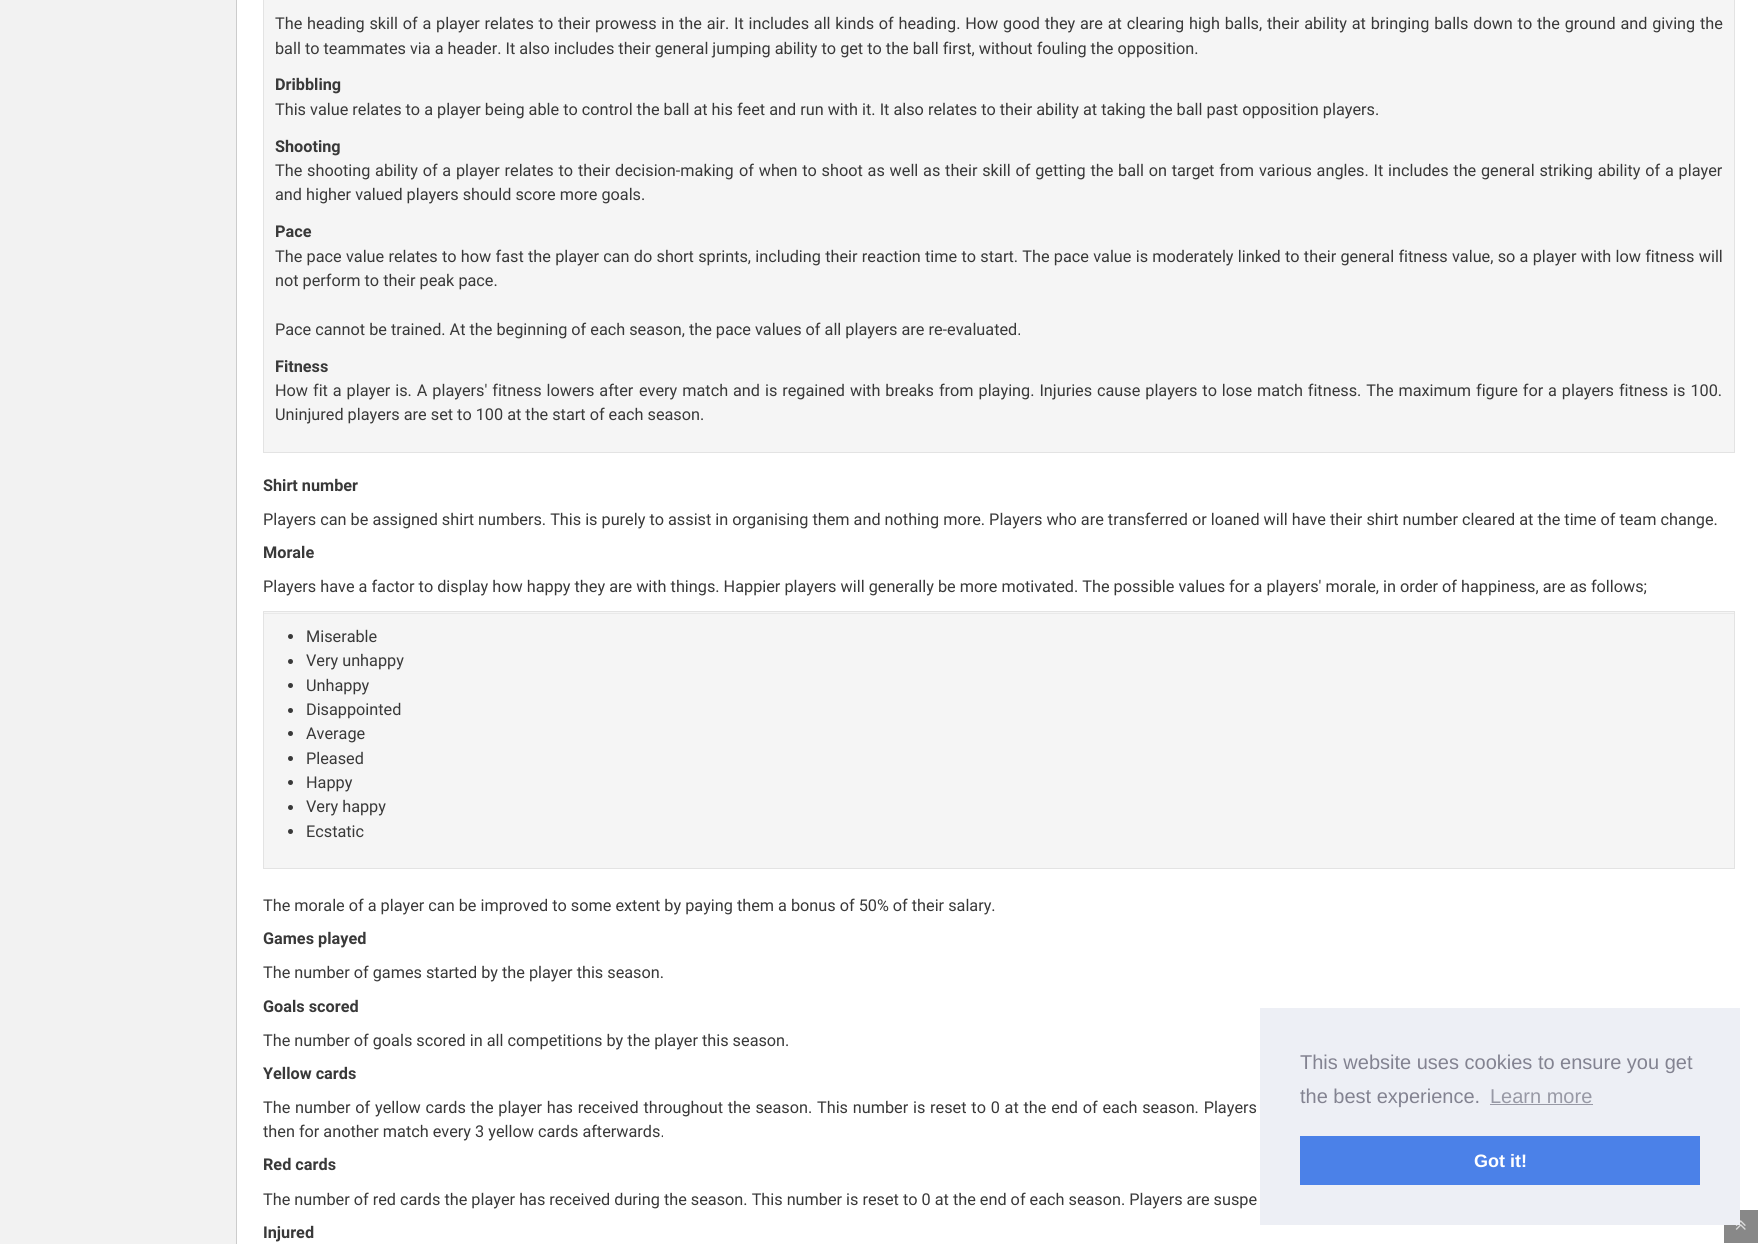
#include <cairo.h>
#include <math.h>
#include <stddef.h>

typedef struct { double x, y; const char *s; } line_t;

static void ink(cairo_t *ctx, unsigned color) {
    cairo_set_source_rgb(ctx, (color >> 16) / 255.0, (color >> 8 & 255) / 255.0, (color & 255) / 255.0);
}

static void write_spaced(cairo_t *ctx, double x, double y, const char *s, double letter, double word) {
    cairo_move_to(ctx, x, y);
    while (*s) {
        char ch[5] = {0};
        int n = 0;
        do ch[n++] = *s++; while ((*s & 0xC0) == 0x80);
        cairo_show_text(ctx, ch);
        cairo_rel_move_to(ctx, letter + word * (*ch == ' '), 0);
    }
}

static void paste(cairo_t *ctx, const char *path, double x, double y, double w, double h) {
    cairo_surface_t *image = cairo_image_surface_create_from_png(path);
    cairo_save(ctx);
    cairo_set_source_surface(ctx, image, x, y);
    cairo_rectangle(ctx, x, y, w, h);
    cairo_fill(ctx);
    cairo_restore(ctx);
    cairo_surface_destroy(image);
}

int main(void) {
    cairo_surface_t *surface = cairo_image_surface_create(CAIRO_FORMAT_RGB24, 1760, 1244);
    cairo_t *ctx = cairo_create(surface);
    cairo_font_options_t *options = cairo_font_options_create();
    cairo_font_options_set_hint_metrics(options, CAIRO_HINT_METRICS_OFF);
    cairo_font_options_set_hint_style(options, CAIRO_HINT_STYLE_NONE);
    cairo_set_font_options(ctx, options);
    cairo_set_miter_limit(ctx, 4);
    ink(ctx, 0xFFFFFF);
    cairo_paint(ctx);
    ink(ctx, 0xF2F2F2);
    cairo_rectangle(ctx, 0, 0, 236, 1244);
    cairo_fill(ctx);
    ink(ctx, 0xCCCCCC);
    cairo_rectangle(ctx, 236, 0, 1, 1244);
    cairo_fill(ctx);
    ink(ctx, 0xF5F5F5);
    cairo_rectangle(ctx, 263.5, -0.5, 1471, 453);
    cairo_fill_preserve(ctx);
    ink(ctx, 0xE3E3E3);
    cairo_set_line_width(ctx, 1);
    cairo_stroke(ctx);
    cairo_select_font_face(ctx, "Roboto", CAIRO_FONT_SLANT_NORMAL, CAIRO_FONT_WEIGHT_NORMAL);
    cairo_set_font_size(ctx, 16.25);
    ink(ctx, 0x393939);
    {
        static const line_t items[] = {
            {275, 29, "The heading skill of a player relates to their prowess in the air."},
            {734, 29, "It includes all kinds of heading. How good they are at clearing high balls,"},
            {1267, 29, "their ability at bringing balls down to the ground and giving the"},
        };
        for (size_t i = 0; i < sizeof items / sizeof *items; i++) {
            write_spaced(ctx, items[i].x, items[i].y, items[i].s, 0, 0.75);
        }
    }
    cairo_move_to(ctx, 275, 54);
    cairo_show_text(ctx, "ball to teammates via a header. It also includes their general jumping ability to get to the ball first, without fouling the opposition.");
    cairo_select_font_face(ctx, "Roboto", CAIRO_FONT_SLANT_NORMAL, CAIRO_FONT_WEIGHT_BOLD);
    cairo_move_to(ctx, 275, 90);
    cairo_show_text(ctx, "Dribbling");
    cairo_select_font_face(ctx, "Roboto", CAIRO_FONT_SLANT_NORMAL, CAIRO_FONT_WEIGHT_NORMAL);
    cairo_move_to(ctx, 275, 115);
    cairo_show_text(ctx, "This value relates to a player being able to control the ball at his feet and run with it. It also relates to their ability at taking the ball past opposition players.");
    cairo_select_font_face(ctx, "Roboto", CAIRO_FONT_SLANT_NORMAL, CAIRO_FONT_WEIGHT_BOLD);
    cairo_move_to(ctx, 275, 152);
    cairo_show_text(ctx, "Shooting");
    cairo_select_font_face(ctx, "Roboto", CAIRO_FONT_SLANT_NORMAL, CAIRO_FONT_WEIGHT_NORMAL);
    {
        static const line_t items[] = {
            {275, 176, "The shooting ability of a player relates to their decision-making"},
            {739, 176, "of when to shoot as well as their skill of getting the ball on target from"},
            {1259, 176, "various angles. It includes the general striking ability of a player"},
        };
        for (size_t i = 0; i < sizeof items / sizeof *items; i++) {
            write_spaced(ctx, items[i].x, items[i].y, items[i].s, 0, 0.75);
        }
    }
    cairo_move_to(ctx, 275, 200);
    cairo_show_text(ctx, "and higher valued players should score more goals.");
    cairo_select_font_face(ctx, "Roboto", CAIRO_FONT_SLANT_NORMAL, CAIRO_FONT_WEIGHT_BOLD);
    cairo_move_to(ctx, 275, 237);
    cairo_show_text(ctx, "Pace");
    cairo_select_font_face(ctx, "Roboto", CAIRO_FONT_SLANT_NORMAL, CAIRO_FONT_WEIGHT_NORMAL);
    write_spaced(ctx, 275, 262, "The pace value relates to how fast the player can do short sprints, including their reaction time to start. The pace value is moderately linked to their general fitness value, so a player with low fitness will", 0, 0.25);
    cairo_move_to(ctx, 275, 286);
    cairo_show_text(ctx, "not perform to their peak pace.");
    cairo_move_to(ctx, 275, 335);
    cairo_show_text(ctx, "Pace cannot be trained. At the beginning of each season, the pace values of all players are re-evaluated.");
    cairo_select_font_face(ctx, "Roboto", CAIRO_FONT_SLANT_NORMAL, CAIRO_FONT_WEIGHT_BOLD);
    cairo_move_to(ctx, 275, 372);
    cairo_show_text(ctx, "Fitness");
    cairo_select_font_face(ctx, "Roboto", CAIRO_FONT_SLANT_NORMAL, CAIRO_FONT_WEIGHT_NORMAL);
    {
        static const line_t items[] = {
            {275, 396, "How fit a player is. A players' fitness lowers after"},
            {639, 396, "every match and is regained with breaks from playing. Injuries cause players to lose match fitness. The maximum"},
            {1476, 396, "figure for a players fitness is 100."},
        };
        for (size_t i = 0; i < sizeof items / sizeof *items; i++) {
            write_spaced(ctx, items[i].x, items[i].y, items[i].s, 0, 0.9);
        }
    }
    cairo_move_to(ctx, 275, 420);
    cairo_show_text(ctx, "Uninjured players are set to 100 at the start of each season.");
    cairo_select_font_face(ctx, "Roboto", CAIRO_FONT_SLANT_NORMAL, CAIRO_FONT_WEIGHT_BOLD);
    cairo_move_to(ctx, 263, 491);
    cairo_show_text(ctx, "Shirt number");
    cairo_select_font_face(ctx, "Roboto", CAIRO_FONT_SLANT_NORMAL, CAIRO_FONT_WEIGHT_NORMAL);
    cairo_move_to(ctx, 263, 525);
    cairo_show_text(ctx, "Players can be assigned shirt numbers. This is purely to assist in organising them and nothing more. Players who are transferred or loaned will have their shirt number cleared at the time of team change.");
    cairo_select_font_face(ctx, "Roboto", CAIRO_FONT_SLANT_NORMAL, CAIRO_FONT_WEIGHT_BOLD);
    cairo_move_to(ctx, 263, 558);
    cairo_show_text(ctx, "Morale");
    cairo_select_font_face(ctx, "Roboto", CAIRO_FONT_SLANT_NORMAL, CAIRO_FONT_WEIGHT_NORMAL);
    cairo_move_to(ctx, 263, 592);
    cairo_show_text(ctx, "Players have a factor to display how happy they are with things. Happier players will generally be more motivated. The possible values for a players' morale, in order of happiness, are as follows;");
    ink(ctx, 0xF5F5F5);
    cairo_rectangle(ctx, 264, 612, 1470, 256);
    cairo_fill(ctx);
    ink(ctx, 0xE9E9E9);
    cairo_rectangle(ctx, 264, 613, 1470, 1);
    cairo_fill(ctx);
    cairo_rectangle(ctx, 263.5, 611.5, 1471, 257);
    ink(ctx, 0xE3E3E3);
    cairo_stroke(ctx);
    ink(ctx, 0x393939);
    cairo_arc(ctx, 290.5, 636.5, 2.5, 0, 2 * M_PI);
    cairo_fill(ctx);
    cairo_move_to(ctx, 306, 642);
    cairo_show_text(ctx, "Miserable");
    cairo_new_path(ctx);
    cairo_arc(ctx, 290.5, 661.5, 2.5, 0, 2 * M_PI);
    cairo_fill(ctx);
    cairo_move_to(ctx, 306, 666);
    cairo_show_text(ctx, "Very unhappy");
    cairo_new_path(ctx);
    cairo_arc(ctx, 290.5, 685.5, 2.5, 0, 2 * M_PI);
    cairo_fill(ctx);
    cairo_move_to(ctx, 306, 691);
    cairo_show_text(ctx, "Unhappy");
    cairo_new_path(ctx);
    cairo_arc(ctx, 290.5, 710.5, 2.5, 0, 2 * M_PI);
    cairo_fill(ctx);
    cairo_move_to(ctx, 306, 715);
    cairo_show_text(ctx, "Disappointed");
    cairo_new_path(ctx);
    cairo_arc(ctx, 290.5, 733.5, 2.5, 0, 2 * M_PI);
    cairo_fill(ctx);
    cairo_move_to(ctx, 306, 739);
    cairo_show_text(ctx, "Average");
    cairo_new_path(ctx);
    cairo_arc(ctx, 290.5, 758.5, 2.5, 0, 2 * M_PI);
    cairo_fill(ctx);
    cairo_move_to(ctx, 306, 764);
    cairo_show_text(ctx, "Pleased");
    cairo_new_path(ctx);
    cairo_arc(ctx, 290.5, 782.5, 2.5, 0, 2 * M_PI);
    cairo_fill(ctx);
    cairo_move_to(ctx, 306, 788);
    cairo_show_text(ctx, "Happy");
    cairo_new_path(ctx);
    cairo_arc(ctx, 290.5, 807.5, 2.5, 0, 2 * M_PI);
    cairo_fill(ctx);
    cairo_move_to(ctx, 306, 812);
    cairo_show_text(ctx, "Very happy");
    cairo_new_path(ctx);
    cairo_arc(ctx, 290.5, 831.5, 2.5, 0, 2 * M_PI);
    cairo_fill(ctx);
    cairo_move_to(ctx, 306, 837);
    cairo_show_text(ctx, "Ecstatic");
    cairo_move_to(ctx, 263, 911);
    cairo_show_text(ctx, "The morale of a player can be improved to some extent by paying them a bonus of 50% of their salary.");
    cairo_select_font_face(ctx, "Roboto", CAIRO_FONT_SLANT_NORMAL, CAIRO_FONT_WEIGHT_BOLD);
    cairo_move_to(ctx, 263, 944);
    cairo_show_text(ctx, "Games played");
    cairo_select_font_face(ctx, "Roboto", CAIRO_FONT_SLANT_NORMAL, CAIRO_FONT_WEIGHT_NORMAL);
    cairo_move_to(ctx, 263, 978);
    cairo_show_text(ctx, "The number of games started by the player this season.");
    cairo_select_font_face(ctx, "Roboto", CAIRO_FONT_SLANT_NORMAL, CAIRO_FONT_WEIGHT_BOLD);
    cairo_move_to(ctx, 263, 1012);
    cairo_show_text(ctx, "Goals scored");
    cairo_select_font_face(ctx, "Roboto", CAIRO_FONT_SLANT_NORMAL, CAIRO_FONT_WEIGHT_NORMAL);
    cairo_move_to(ctx, 263, 1046);
    cairo_show_text(ctx, "The number of goals scored in all competitions by the player this season.");
    cairo_select_font_face(ctx, "Roboto", CAIRO_FONT_SLANT_NORMAL, CAIRO_FONT_WEIGHT_BOLD);
    cairo_move_to(ctx, 263, 1079);
    cairo_show_text(ctx, "Yellow cards");
    cairo_select_font_face(ctx, "Roboto", CAIRO_FONT_SLANT_NORMAL, CAIRO_FONT_WEIGHT_NORMAL);
    write_spaced(ctx, 263, 1113, "The number of yellow cards the player has received throughout the season.", 0, 0.75);
    write_spaced(ctx, 817, 1113, "This number is reset to 0 at the end of each season. Players", 0, 0.75);
    cairo_move_to(ctx, 263, 1137);
    cairo_show_text(ctx, "then for another match every 3 yellow cards afterwards.");
    cairo_select_font_face(ctx, "Roboto", CAIRO_FONT_SLANT_NORMAL, CAIRO_FONT_WEIGHT_BOLD);
    cairo_move_to(ctx, 263, 1170);
    cairo_show_text(ctx, "Red cards");
    cairo_select_font_face(ctx, "Roboto", CAIRO_FONT_SLANT_NORMAL, CAIRO_FONT_WEIGHT_NORMAL);
    cairo_move_to(ctx, 263, 1205);
    cairo_show_text(ctx, "The number of red cards the player has received during the season. This number is reset to 0 at the end of each season. Players are suspe");
    cairo_select_font_face(ctx, "Roboto", CAIRO_FONT_SLANT_NORMAL, CAIRO_FONT_WEIGHT_BOLD);
    cairo_move_to(ctx, 263, 1238);
    cairo_show_text(ctx, "Injured");
    ink(ctx, 0x888888);
    cairo_rectangle(ctx, 1724, 1210, 34, 33);
    cairo_fill(ctx);
    paste(ctx, "media/1.png", 1735, 1220, 11, 10);
    ink(ctx, 0xEDEFF5);
    cairo_rectangle(ctx, 1260, 1008, 480, 217);
    cairo_fill(ctx);
    cairo_select_font_face(ctx, "Liberation Sans", CAIRO_FONT_SLANT_NORMAL, CAIRO_FONT_WEIGHT_NORMAL);
    cairo_set_font_size(ctx, 20);
    ink(ctx, 0x838391);
    cairo_move_to(ctx, 1300, 1069);
    cairo_show_text(ctx, "This website uses cookies to ensure you get");
    cairo_move_to(ctx, 1300, 1103);
    cairo_show_text(ctx, "the best experience.");
    ink(ctx, 0x9899A5);
    cairo_move_to(ctx, 1490, 1103);
    cairo_show_text(ctx, "Learn more");
    cairo_rectangle(ctx, 1490, 1104, 103, 1);
    cairo_fill(ctx);
    ink(ctx, 0x4B81E8);
    cairo_rectangle(ctx, 1300, 1136, 400, 49);
    cairo_fill(ctx);
    cairo_select_font_face(ctx, "Liberation Sans", CAIRO_FONT_SLANT_NORMAL, CAIRO_FONT_WEIGHT_BOLD);
    cairo_set_font_size(ctx, 18);
    ink(ctx, 0xFFFFFF);
    cairo_move_to(ctx, 1474, 1167);
    cairo_show_text(ctx, "Got it!");
    cairo_surface_write_to_png(surface, "image.png");
    cairo_font_options_destroy(options);
    cairo_destroy(ctx);
    cairo_surface_destroy(surface);
    return 0;
}
